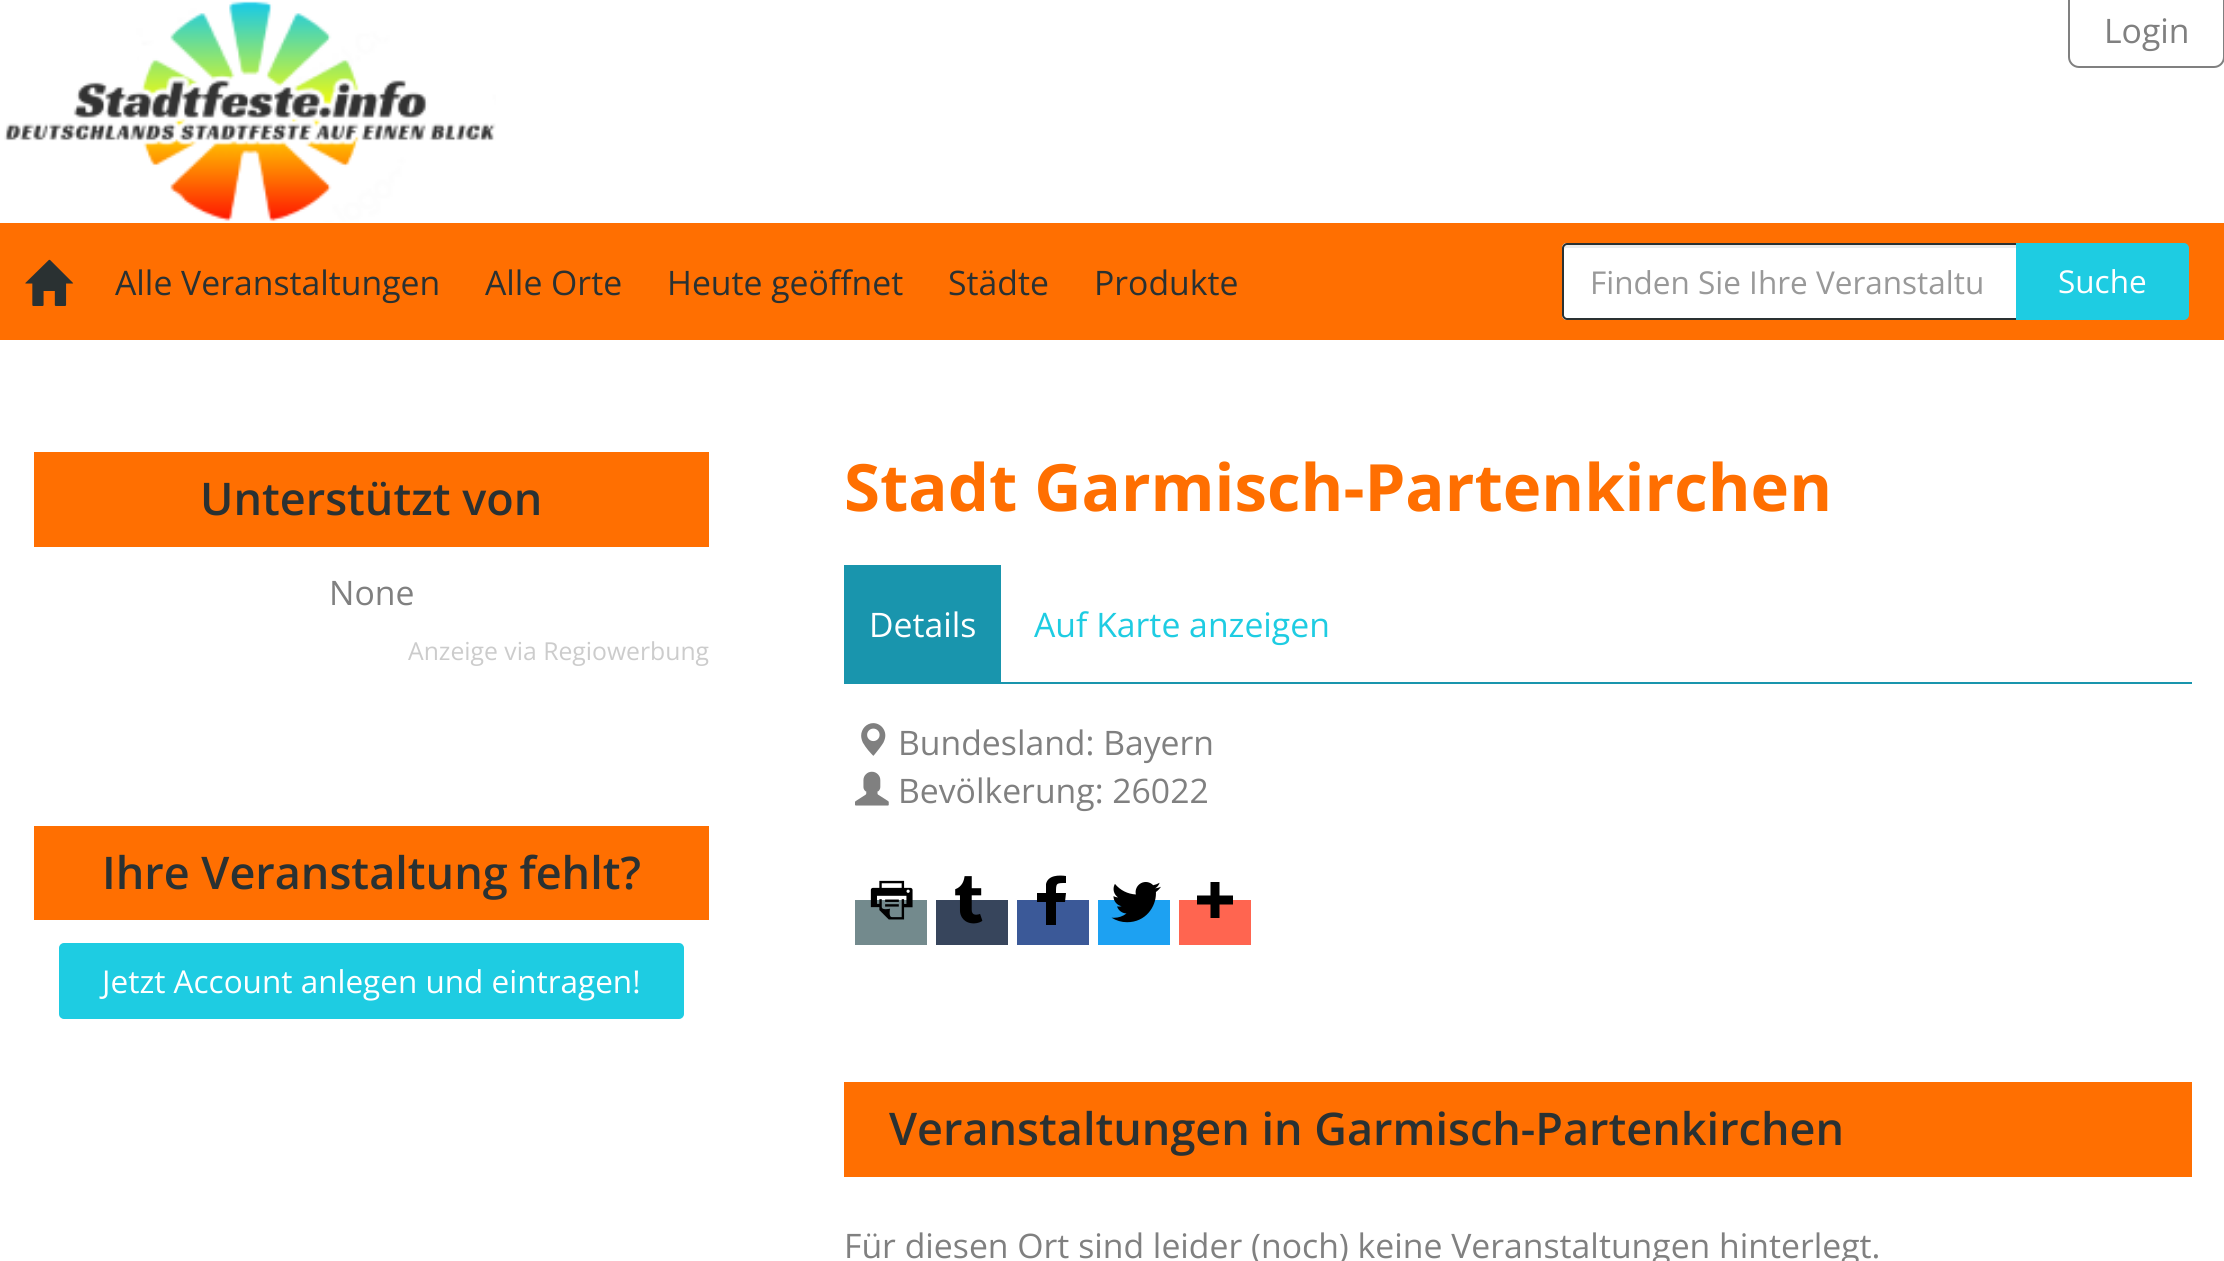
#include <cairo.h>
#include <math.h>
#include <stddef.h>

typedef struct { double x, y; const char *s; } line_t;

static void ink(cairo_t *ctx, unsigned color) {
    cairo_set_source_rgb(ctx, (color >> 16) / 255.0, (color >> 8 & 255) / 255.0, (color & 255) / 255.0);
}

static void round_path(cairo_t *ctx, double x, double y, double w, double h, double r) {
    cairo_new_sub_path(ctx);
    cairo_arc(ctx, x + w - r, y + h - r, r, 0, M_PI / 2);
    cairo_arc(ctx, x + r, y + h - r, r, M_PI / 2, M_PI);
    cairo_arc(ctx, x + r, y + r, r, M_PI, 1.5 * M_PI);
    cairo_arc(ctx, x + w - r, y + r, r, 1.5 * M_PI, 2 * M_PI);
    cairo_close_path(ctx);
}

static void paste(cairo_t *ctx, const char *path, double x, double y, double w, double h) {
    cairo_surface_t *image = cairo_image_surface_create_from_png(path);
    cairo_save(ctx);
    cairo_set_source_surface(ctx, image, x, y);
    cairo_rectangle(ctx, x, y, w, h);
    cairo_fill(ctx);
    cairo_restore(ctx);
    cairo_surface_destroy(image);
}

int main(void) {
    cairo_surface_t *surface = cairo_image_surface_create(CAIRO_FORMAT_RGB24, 2224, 1261);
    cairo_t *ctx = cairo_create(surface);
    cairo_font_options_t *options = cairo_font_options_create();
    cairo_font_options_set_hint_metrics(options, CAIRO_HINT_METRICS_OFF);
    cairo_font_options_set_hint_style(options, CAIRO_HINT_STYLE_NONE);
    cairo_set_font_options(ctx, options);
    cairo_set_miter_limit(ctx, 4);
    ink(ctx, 0xFFFFFF);
    cairo_paint(ctx);
    paste(ctx, "media/1.png", 4, 1, 492, 221);
    round_path(ctx, 2069, -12, 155, 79, 10);
    ink(ctx, 0x808080);
    cairo_stroke(ctx);
    cairo_select_font_face(ctx, "Open Sans", CAIRO_FONT_SLANT_NORMAL, CAIRO_FONT_WEIGHT_NORMAL);
    cairo_set_font_size(ctx, 33.75);
    cairo_move_to(ctx, 2104, 43);
    cairo_show_text(ctx, "Login");
    ink(ctx, 0xFF6F01);
    cairo_rectangle(ctx, 0, 223, 2224, 117);
    cairo_fill(ctx);
    paste(ctx, "media/2.png", 25, 259, 49, 47);
    ink(ctx, 0x2A3132);
    {
        static const line_t items[] = {
            {115, 295, "Alle Veranstaltungen"},
            {485, 295, "Alle Orte"},
            {667, 295, "Heute geöffnet"},
            {948, 295, "Städte"},
            {1094, 295, "Produkte"},
        };
        for (size_t i = 0; i < sizeof items / sizeof *items; i++) {
            cairo_move_to(ctx, items[i].x, items[i].y);
            cairo_show_text(ctx, items[i].s);
        }
    }
    ink(ctx, 0xFFFFFF);
    cairo_new_path(ctx);
    cairo_move_to(ctx, 1567, 243);
    cairo_line_to(ctx, 2018, 243);
    cairo_line_to(ctx, 2018, 320);
    cairo_line_to(ctx, 1567, 320);
    cairo_curve_to(ctx, 1564, 320, 1562, 318, 1562, 315);
    cairo_line_to(ctx, 1562, 248);
    cairo_curve_to(ctx, 1562, 245, 1564, 243, 1567, 243);
    cairo_close_path(ctx);
    cairo_fill(ctx);
    ink(ctx, 0xECECEC);
    cairo_new_path(ctx);
    cairo_move_to(ctx, 1566, 248);
    cairo_line_to(ctx, 2016, 248);
    cairo_line_to(ctx, 2016, 245);
    cairo_line_to(ctx, 1565, 245);
    cairo_curve_to(ctx, 1563, 246, 1564, 249, 1564, 250);
    cairo_curve_to(ctx, 1564, 249, 1565, 248, 1566, 248);
    cairo_close_path(ctx);
    cairo_fill(ctx);
    cairo_new_path(ctx);
    cairo_move_to(ctx, 1567, 244);
    cairo_line_to(ctx, 2017, 244);
    cairo_line_to(ctx, 2017, 319);
    cairo_line_to(ctx, 1567, 319);
    cairo_curve_to(ctx, 1565, 319, 1563, 317, 1563, 315);
    cairo_line_to(ctx, 1563, 248);
    cairo_curve_to(ctx, 1563, 246, 1565, 244, 1567, 244);
    cairo_close_path(ctx);
    ink(ctx, 0x2A3132);
    cairo_stroke(ctx);
    cairo_set_font_size(ctx, 31.5);
    ink(ctx, 0x999999);
    cairo_move_to(ctx, 1590, 294);
    cairo_show_text(ctx, "Finden Sie Ihre Veranstaltu");
    ink(ctx, 0x1ECCE2);
    cairo_new_path(ctx);
    cairo_move_to(ctx, 2017, 244);
    cairo_line_to(ctx, 2184, 244);
    cairo_curve_to(ctx, 2186, 244, 2188, 246, 2188, 248);
    cairo_line_to(ctx, 2188, 315);
    cairo_curve_to(ctx, 2188, 317, 2186, 319, 2184, 319);
    cairo_line_to(ctx, 2017, 319);
    cairo_close_path(ctx);
    cairo_fill_preserve(ctx);
    cairo_stroke(ctx);
    ink(ctx, 0xFFFFFF);
    cairo_move_to(ctx, 2058, 293);
    cairo_show_text(ctx, "Suche");
    ink(ctx, 0xFF6F01);
    cairo_rectangle(ctx, 34, 452, 675, 95);
    cairo_fill(ctx);
    cairo_select_font_face(ctx, "Open Sans SemiBold", CAIRO_FONT_SLANT_NORMAL, CAIRO_FONT_WEIGHT_NORMAL);
    cairo_set_font_size(ctx, 45);
    ink(ctx, 0x2A3132);
    cairo_move_to(ctx, 200, 515);
    cairo_show_text(ctx, "Unterstützt von");
    cairo_select_font_face(ctx, "Open Sans", CAIRO_FONT_SLANT_NORMAL, CAIRO_FONT_WEIGHT_NORMAL);
    cairo_set_font_size(ctx, 33.75);
    ink(ctx, 0x808080);
    cairo_move_to(ctx, 329, 605);
    cairo_show_text(ctx, "None");
    cairo_set_font_size(ctx, 24.75);
    ink(ctx, 0xCCCCCC);
    cairo_move_to(ctx, 408, 660);
    cairo_show_text(ctx, "Anzeige via Regiowerbung");
    ink(ctx, 0xFF6F01);
    cairo_rectangle(ctx, 34, 826, 675, 94);
    cairo_fill(ctx);
    cairo_select_font_face(ctx, "Open Sans SemiBold", CAIRO_FONT_SLANT_NORMAL, CAIRO_FONT_WEIGHT_NORMAL);
    cairo_set_font_size(ctx, 45);
    ink(ctx, 0x2A3132);
    cairo_move_to(ctx, 102, 889);
    cairo_show_text(ctx, "Ihre Veranstaltung fehlt?");
    ink(ctx, 0x1ECCE2);
    round_path(ctx, 60, 944, 623, 74, 4);
    cairo_fill_preserve(ctx);
    cairo_stroke(ctx);
    cairo_select_font_face(ctx, "Open Sans", CAIRO_FONT_SLANT_NORMAL, CAIRO_FONT_WEIGHT_NORMAL);
    cairo_set_font_size(ctx, 31.5);
    ink(ctx, 0xFFFFFF);
    cairo_move_to(ctx, 102, 993);
    cairo_show_text(ctx, "Jetzt Account anlegen und eintragen!");
    cairo_select_font_face(ctx, "Open Sans", CAIRO_FONT_SLANT_NORMAL, CAIRO_FONT_WEIGHT_BOLD);
    cairo_set_font_size(ctx, 65.25);
    ink(ctx, 0xFF6F01);
    cairo_move_to(ctx, 844, 511);
    cairo_show_text(ctx, "Stadt Garmisch-Partenkirchen");
    ink(ctx, 0x1995AD);
    cairo_rectangle(ctx, 1001, 682, 1191, 2);
    cairo_fill(ctx);
    cairo_rectangle(ctx, 844, 565, 157, 119);
    cairo_fill(ctx);
    cairo_select_font_face(ctx, "Open Sans", CAIRO_FONT_SLANT_NORMAL, CAIRO_FONT_WEIGHT_NORMAL);
    cairo_set_font_size(ctx, 33.75);
    ink(ctx, 0xFFFFFF);
    cairo_move_to(ctx, 869, 637);
    cairo_show_text(ctx, "Details");
    ink(ctx, 0x1ECCE2);
    cairo_move_to(ctx, 1034, 637);
    cairo_show_text(ctx, "Auf Karte anzeigen");
    paste(ctx, "media/3.png", 861, 723, 25, 33);
    ink(ctx, 0x808080);
    cairo_move_to(ctx, 898, 755);
    cairo_show_text(ctx, "Bundesland: Bayern");
    paste(ctx, "media/4.png", 855, 771, 34, 35);
    cairo_move_to(ctx, 898, 803);
    cairo_show_text(ctx, "Bevölkerung: 26022");
    ink(ctx, 0x738A8D);
    cairo_rectangle(ctx, 855, 900, 72, 45);
    cairo_fill(ctx);
    paste(ctx, "media/5.png", 870, 880, 43, 40);
    ink(ctx, 0x37455C);
    cairo_rectangle(ctx, 936, 900, 72, 45);
    cairo_fill(ctx);
    paste(ctx, "media/6.png", 955, 876, 28, 48);
    ink(ctx, 0x3B5998);
    cairo_rectangle(ctx, 1017, 900, 72, 45);
    cairo_fill(ctx);
    ink(ctx, 0x000000);
    cairo_set_fill_rule(ctx, CAIRO_FILL_RULE_EVEN_ODD);
    cairo_new_path(ctx);
    cairo_move_to(ctx, 1066, 876);
    cairo_curve_to(ctx, 1059, 875, 1048, 875, 1046, 884);
    cairo_line_to(ctx, 1046, 893);
    cairo_line_to(ctx, 1037, 893);
    cairo_line_to(ctx, 1037, 902);
    cairo_line_to(ctx, 1046, 902);
    cairo_line_to(ctx, 1046, 925);
    cairo_line_to(ctx, 1056, 925);
    cairo_line_to(ctx, 1056, 902);
    cairo_line_to(ctx, 1065, 902);
    cairo_line_to(ctx, 1066, 893);
    cairo_line_to(ctx, 1056, 893);
    cairo_curve_to(ctx, 1056, 883, 1056, 883, 1066, 883);
    cairo_close_path(ctx);
    cairo_fill(ctx);
    ink(ctx, 0x1DA1F2);
    cairo_rectangle(ctx, 1098, 900, 72, 45);
    cairo_fill(ctx);
    paste(ctx, "media/7.png", 1111, 882, 50, 41);
    ink(ctx, 0xFF6550);
    cairo_rectangle(ctx, 1179, 900, 72, 45);
    cairo_fill(ctx);
    ink(ctx, 0x000000);
    cairo_new_path(ctx);
    cairo_move_to(ctx, 1219.5, 895.5);
    cairo_line_to(ctx, 1219.5, 882);
    cairo_line_to(ctx, 1210.5, 882);
    cairo_line_to(ctx, 1210.5, 895.5);
    cairo_line_to(ctx, 1197, 895.5);
    cairo_line_to(ctx, 1197, 904.5);
    cairo_line_to(ctx, 1210.5, 904.5);
    cairo_line_to(ctx, 1210.5, 918);
    cairo_line_to(ctx, 1219.5, 918);
    cairo_line_to(ctx, 1219.5, 904.5);
    cairo_line_to(ctx, 1233, 904.5);
    cairo_line_to(ctx, 1233, 895.5);
    cairo_close_path(ctx);
    cairo_fill(ctx);
    ink(ctx, 0xFF6F01);
    cairo_rectangle(ctx, 844, 1082, 1348, 95);
    cairo_fill(ctx);
    cairo_select_font_face(ctx, "Open Sans SemiBold", CAIRO_FONT_SLANT_NORMAL, CAIRO_FONT_WEIGHT_NORMAL);
    cairo_set_font_size(ctx, 45);
    ink(ctx, 0x2A3132);
    cairo_move_to(ctx, 889, 1145);
    cairo_show_text(ctx, "Veranstaltungen in Garmisch-Partenkirchen");
    cairo_select_font_face(ctx, "Open Sans", CAIRO_FONT_SLANT_NORMAL, CAIRO_FONT_WEIGHT_NORMAL);
    cairo_set_font_size(ctx, 33.75);
    ink(ctx, 0x808080);
    cairo_move_to(ctx, 844, 1258);
    cairo_show_text(ctx, "Für diesen Ort sind leider (noch) keine Veranstaltungen hinterlegt.");
    cairo_surface_write_to_png(surface, "image.png");
    cairo_font_options_destroy(options);
    cairo_destroy(ctx);
    cairo_surface_destroy(surface);
    return 0;
}
